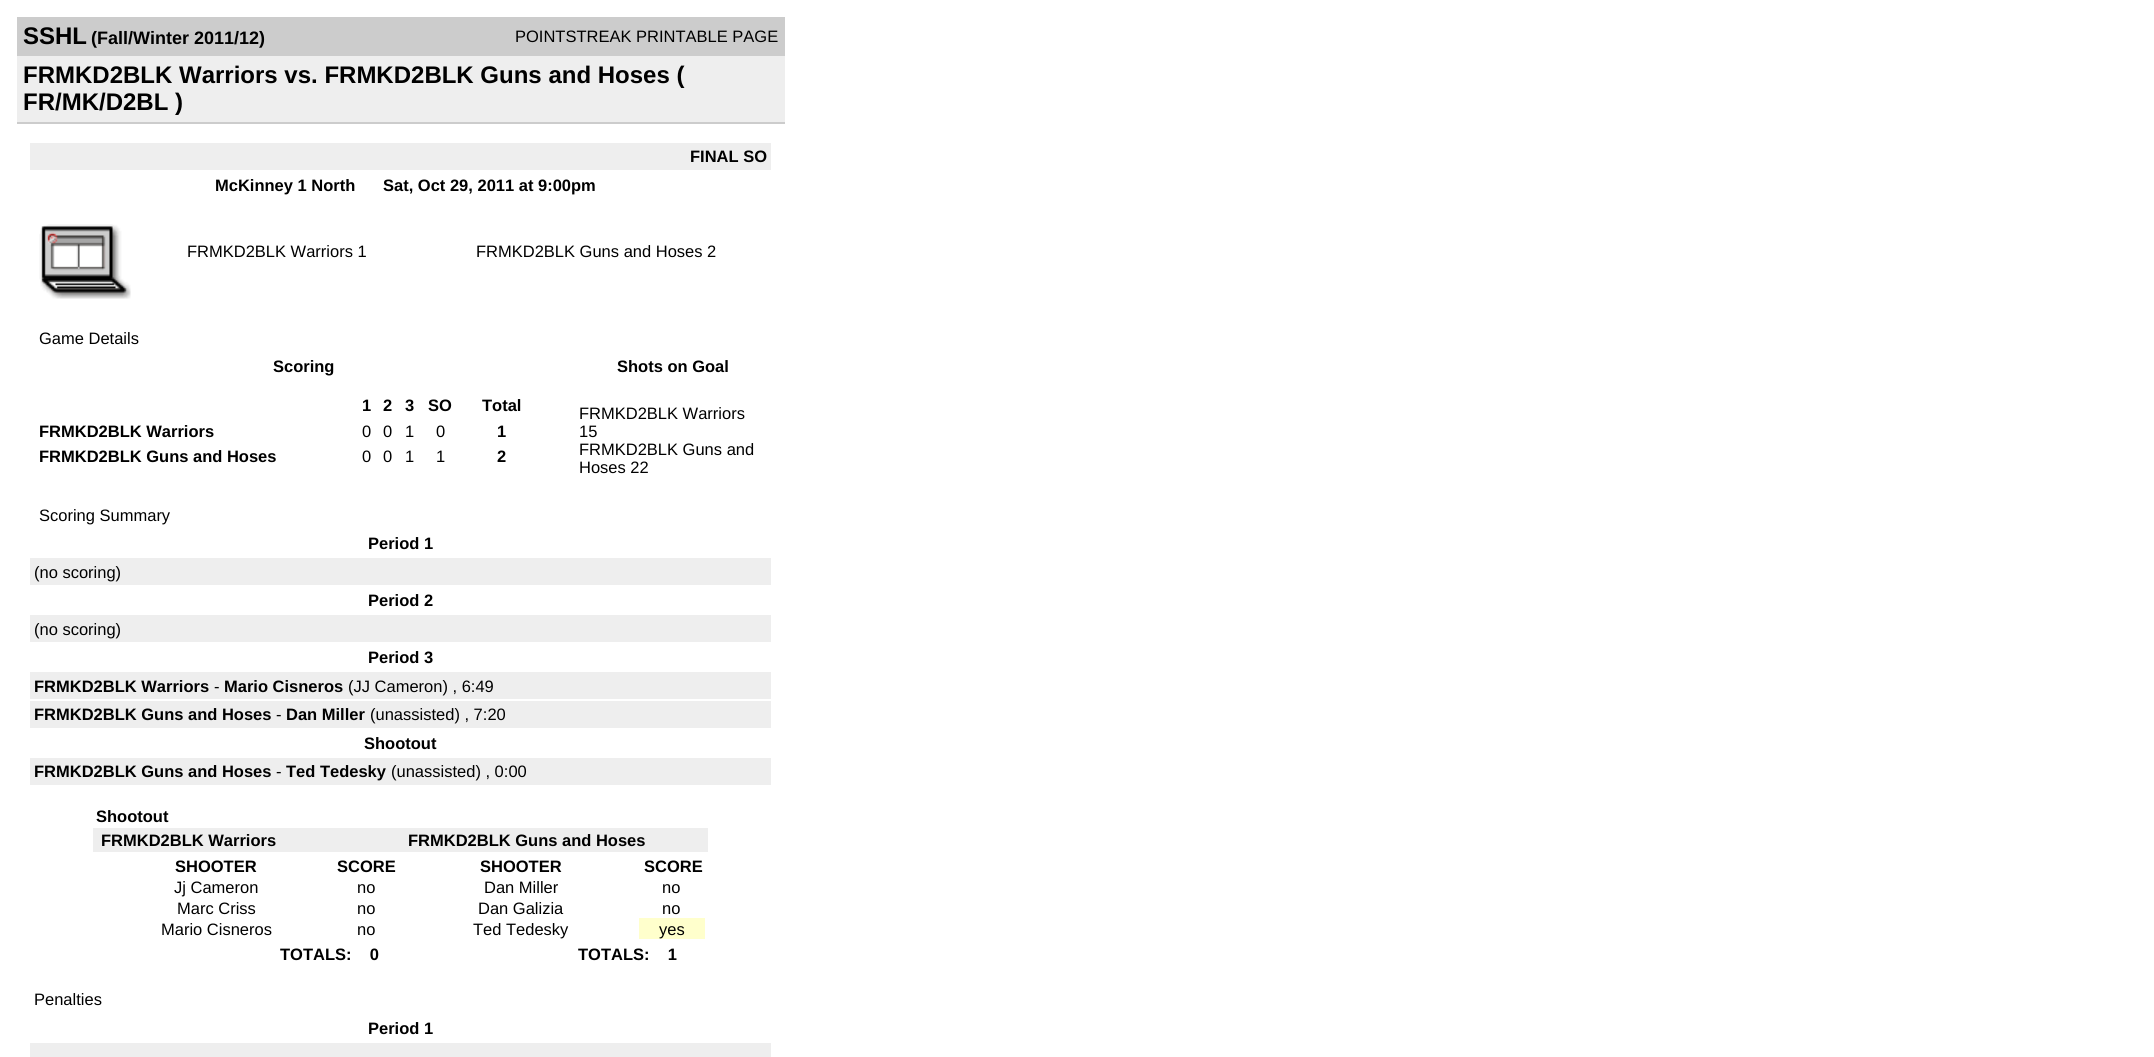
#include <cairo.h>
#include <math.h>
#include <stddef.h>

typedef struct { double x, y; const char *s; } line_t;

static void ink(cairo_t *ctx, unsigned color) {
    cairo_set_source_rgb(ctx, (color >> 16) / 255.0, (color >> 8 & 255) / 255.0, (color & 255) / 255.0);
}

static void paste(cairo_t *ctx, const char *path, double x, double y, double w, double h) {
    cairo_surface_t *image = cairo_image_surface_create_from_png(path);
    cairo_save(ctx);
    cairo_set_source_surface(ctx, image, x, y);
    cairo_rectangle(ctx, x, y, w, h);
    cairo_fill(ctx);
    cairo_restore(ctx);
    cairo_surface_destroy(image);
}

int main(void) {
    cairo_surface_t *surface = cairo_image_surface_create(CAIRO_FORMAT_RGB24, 2154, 1057);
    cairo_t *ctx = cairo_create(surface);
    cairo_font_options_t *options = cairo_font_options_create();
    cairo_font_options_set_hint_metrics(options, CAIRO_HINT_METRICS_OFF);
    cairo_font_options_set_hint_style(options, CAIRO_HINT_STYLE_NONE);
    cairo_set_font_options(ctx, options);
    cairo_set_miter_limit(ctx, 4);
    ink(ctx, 0xFFFFFF);
    cairo_paint(ctx);
    ink(ctx, 0xCCCCCC);
    cairo_rectangle(ctx, 17, 17, 768, 39);
    cairo_fill(ctx);
    cairo_select_font_face(ctx, "Liberation Sans", CAIRO_FONT_SLANT_NORMAL, CAIRO_FONT_WEIGHT_BOLD);
    cairo_set_font_size(ctx, 24);
    ink(ctx, 0x000000);
    cairo_move_to(ctx, 23, 44);
    cairo_show_text(ctx, "SSHL");
    cairo_set_font_size(ctx, 18);
    cairo_move_to(ctx, 91, 44);
    cairo_show_text(ctx, "(Fall/Winter 2011/12)");
    cairo_select_font_face(ctx, "Liberation Sans", CAIRO_FONT_SLANT_NORMAL, CAIRO_FONT_WEIGHT_NORMAL);
    cairo_set_font_size(ctx, 16.5);
    cairo_move_to(ctx, 515, 42);
    cairo_show_text(ctx, "POINTSTREAK PRINTABLE PAGE");
    ink(ctx, 0xEEEEEE);
    cairo_rectangle(ctx, 17, 56, 768, 66);
    cairo_fill(ctx);
    cairo_select_font_face(ctx, "Liberation Sans", CAIRO_FONT_SLANT_NORMAL, CAIRO_FONT_WEIGHT_BOLD);
    cairo_set_font_size(ctx, 24);
    ink(ctx, 0x000000);
    cairo_move_to(ctx, 23, 83);
    cairo_show_text(ctx, "FRMKD2BLK Warriors vs. FRMKD2BLK Guns and Hoses (");
    cairo_move_to(ctx, 23, 110);
    cairo_show_text(ctx, "FR/MK/D2BL )");
    ink(ctx, 0xCCCCCC);
    cairo_rectangle(ctx, 17, 122, 768, 2);
    cairo_fill(ctx);
    ink(ctx, 0xEEEEEE);
    cairo_rectangle(ctx, 30, 143, 741, 27);
    cairo_fill(ctx);
    cairo_set_font_size(ctx, 16.5);
    ink(ctx, 0x000000);
    {
        static const line_t items[] = {
            {690, 162, "FINAL SO"},
            {215, 191, "McKinney 1 North"},
            {383, 191, "Sat, Oct 29, 2011 at 9:00pm"},
        };
        for (size_t i = 0; i < sizeof items / sizeof *items; i++) {
            cairo_move_to(ctx, items[i].x, items[i].y);
            cairo_show_text(ctx, items[i].s);
        }
    }
    paste(ctx, "media/1.png", 39, 224, 92, 75);
    cairo_select_font_face(ctx, "Liberation Sans", CAIRO_FONT_SLANT_NORMAL, CAIRO_FONT_WEIGHT_NORMAL);
    {
        static const line_t items[] = {
            {187, 257, "FRMKD2BLK Warriors 1"},
            {476, 257, "FRMKD2BLK Guns and Hoses 2"},
            {39, 344, "Game Details"},
        };
        for (size_t i = 0; i < sizeof items / sizeof *items; i++) {
            cairo_move_to(ctx, items[i].x, items[i].y);
            cairo_show_text(ctx, items[i].s);
        }
    }
    cairo_select_font_face(ctx, "Liberation Sans", CAIRO_FONT_SLANT_NORMAL, CAIRO_FONT_WEIGHT_BOLD);
    {
        static const line_t items[] = {
            {273, 372, "Scoring"},
            {617, 372, "Shots on Goal"},
            {362, 411, "1"},
            {383, 411, "2"},
            {405, 411, "3"},
            {428, 411, "SO"},
            {482, 411, "Total"},
            {39, 437, "FRMKD2BLK Warriors"},
        };
        for (size_t i = 0; i < sizeof items / sizeof *items; i++) {
            cairo_move_to(ctx, items[i].x, items[i].y);
            cairo_show_text(ctx, items[i].s);
        }
    }
    cairo_select_font_face(ctx, "Liberation Sans", CAIRO_FONT_SLANT_NORMAL, CAIRO_FONT_WEIGHT_NORMAL);
    {
        static const line_t items[] = {
            {362, 437, "0"},
            {383, 437, "0"},
            {405, 437, "1"},
            {436, 437, "0"},
        };
        for (size_t i = 0; i < sizeof items / sizeof *items; i++) {
            cairo_move_to(ctx, items[i].x, items[i].y);
            cairo_show_text(ctx, items[i].s);
        }
    }
    cairo_select_font_face(ctx, "Liberation Sans", CAIRO_FONT_SLANT_NORMAL, CAIRO_FONT_WEIGHT_BOLD);
    cairo_move_to(ctx, 497, 437);
    cairo_show_text(ctx, "1");
    cairo_move_to(ctx, 39, 462);
    cairo_show_text(ctx, "FRMKD2BLK Guns and Hoses");
    cairo_select_font_face(ctx, "Liberation Sans", CAIRO_FONT_SLANT_NORMAL, CAIRO_FONT_WEIGHT_NORMAL);
    {
        static const line_t items[] = {
            {362, 462, "0"},
            {383, 462, "0"},
            {405, 462, "1"},
            {436, 462, "1"},
        };
        for (size_t i = 0; i < sizeof items / sizeof *items; i++) {
            cairo_move_to(ctx, items[i].x, items[i].y);
            cairo_show_text(ctx, items[i].s);
        }
    }
    cairo_select_font_face(ctx, "Liberation Sans", CAIRO_FONT_SLANT_NORMAL, CAIRO_FONT_WEIGHT_BOLD);
    cairo_move_to(ctx, 497, 462);
    cairo_show_text(ctx, "2");
    cairo_select_font_face(ctx, "Liberation Sans", CAIRO_FONT_SLANT_NORMAL, CAIRO_FONT_WEIGHT_NORMAL);
    {
        static const line_t items[] = {
            {579, 419, "FRMKD2BLK Warriors"},
            {579, 437, "15"},
            {579, 455, "FRMKD2BLK Guns and"},
            {579, 473, "Hoses 22"},
            {39, 521, "Scoring Summary"},
        };
        for (size_t i = 0; i < sizeof items / sizeof *items; i++) {
            cairo_move_to(ctx, items[i].x, items[i].y);
            cairo_show_text(ctx, items[i].s);
        }
    }
    cairo_select_font_face(ctx, "Liberation Sans", CAIRO_FONT_SLANT_NORMAL, CAIRO_FONT_WEIGHT_BOLD);
    cairo_move_to(ctx, 368, 549);
    cairo_show_text(ctx, "Period 1");
    ink(ctx, 0xEEEEEE);
    cairo_rectangle(ctx, 30, 558, 741, 27);
    cairo_fill(ctx);
    cairo_select_font_face(ctx, "Liberation Sans", CAIRO_FONT_SLANT_NORMAL, CAIRO_FONT_WEIGHT_NORMAL);
    ink(ctx, 0x000000);
    cairo_move_to(ctx, 34, 578);
    cairo_show_text(ctx, "(no scoring)");
    cairo_select_font_face(ctx, "Liberation Sans", CAIRO_FONT_SLANT_NORMAL, CAIRO_FONT_WEIGHT_BOLD);
    cairo_move_to(ctx, 368, 606);
    cairo_show_text(ctx, "Period 2");
    ink(ctx, 0xEEEEEE);
    cairo_rectangle(ctx, 30, 615, 741, 27);
    cairo_fill(ctx);
    cairo_select_font_face(ctx, "Liberation Sans", CAIRO_FONT_SLANT_NORMAL, CAIRO_FONT_WEIGHT_NORMAL);
    ink(ctx, 0x000000);
    cairo_move_to(ctx, 34, 635);
    cairo_show_text(ctx, "(no scoring)");
    cairo_select_font_face(ctx, "Liberation Sans", CAIRO_FONT_SLANT_NORMAL, CAIRO_FONT_WEIGHT_BOLD);
    cairo_move_to(ctx, 368, 663);
    cairo_show_text(ctx, "Period 3");
    ink(ctx, 0xEEEEEE);
    cairo_rectangle(ctx, 30, 672, 741, 27);
    cairo_fill(ctx);
    ink(ctx, 0x000000);
    cairo_move_to(ctx, 34, 692);
    cairo_show_text(ctx, "FRMKD2BLK Warriors");
    cairo_select_font_face(ctx, "Liberation Sans", CAIRO_FONT_SLANT_NORMAL, CAIRO_FONT_WEIGHT_NORMAL);
    cairo_move_to(ctx, 214, 692);
    cairo_show_text(ctx, "-");
    cairo_select_font_face(ctx, "Liberation Sans", CAIRO_FONT_SLANT_NORMAL, CAIRO_FONT_WEIGHT_BOLD);
    cairo_move_to(ctx, 224, 692);
    cairo_show_text(ctx, "Mario Cisneros");
    cairo_select_font_face(ctx, "Liberation Sans", CAIRO_FONT_SLANT_NORMAL, CAIRO_FONT_WEIGHT_NORMAL);
    cairo_move_to(ctx, 348, 692);
    cairo_show_text(ctx, "(JJ Cameron) , 6:49");
    ink(ctx, 0xEEEEEE);
    cairo_rectangle(ctx, 30, 701, 741, 27);
    cairo_fill(ctx);
    cairo_select_font_face(ctx, "Liberation Sans", CAIRO_FONT_SLANT_NORMAL, CAIRO_FONT_WEIGHT_BOLD);
    ink(ctx, 0x000000);
    cairo_move_to(ctx, 34, 720);
    cairo_show_text(ctx, "FRMKD2BLK Guns and Hoses");
    cairo_select_font_face(ctx, "Liberation Sans", CAIRO_FONT_SLANT_NORMAL, CAIRO_FONT_WEIGHT_NORMAL);
    cairo_move_to(ctx, 276, 720);
    cairo_show_text(ctx, "-");
    cairo_select_font_face(ctx, "Liberation Sans", CAIRO_FONT_SLANT_NORMAL, CAIRO_FONT_WEIGHT_BOLD);
    cairo_move_to(ctx, 286, 720);
    cairo_show_text(ctx, "Dan Miller");
    cairo_select_font_face(ctx, "Liberation Sans", CAIRO_FONT_SLANT_NORMAL, CAIRO_FONT_WEIGHT_NORMAL);
    cairo_move_to(ctx, 370, 720);
    cairo_show_text(ctx, "(unassisted) , 7:20");
    cairo_select_font_face(ctx, "Liberation Sans", CAIRO_FONT_SLANT_NORMAL, CAIRO_FONT_WEIGHT_BOLD);
    cairo_move_to(ctx, 364, 749);
    cairo_show_text(ctx, "Shootout");
    ink(ctx, 0xEEEEEE);
    cairo_rectangle(ctx, 30, 758, 741, 27);
    cairo_fill(ctx);
    ink(ctx, 0x000000);
    cairo_move_to(ctx, 34, 777);
    cairo_show_text(ctx, "FRMKD2BLK Guns and Hoses");
    cairo_select_font_face(ctx, "Liberation Sans", CAIRO_FONT_SLANT_NORMAL, CAIRO_FONT_WEIGHT_NORMAL);
    cairo_move_to(ctx, 276, 777);
    cairo_show_text(ctx, "-");
    cairo_select_font_face(ctx, "Liberation Sans", CAIRO_FONT_SLANT_NORMAL, CAIRO_FONT_WEIGHT_BOLD);
    cairo_move_to(ctx, 286, 777);
    cairo_show_text(ctx, "Ted Tedesky");
    cairo_select_font_face(ctx, "Liberation Sans", CAIRO_FONT_SLANT_NORMAL, CAIRO_FONT_WEIGHT_NORMAL);
    cairo_move_to(ctx, 391, 777);
    cairo_show_text(ctx, "(unassisted) , 0:00");
    cairo_select_font_face(ctx, "Liberation Sans", CAIRO_FONT_SLANT_NORMAL, CAIRO_FONT_WEIGHT_BOLD);
    cairo_move_to(ctx, 96, 822);
    cairo_show_text(ctx, "Shootout");
    ink(ctx, 0xEEEEEE);
    cairo_rectangle(ctx, 93, 828, 615, 24);
    cairo_fill(ctx);
    ink(ctx, 0x000000);
    {
        static const line_t items[] = {
            {101, 846, "FRMKD2BLK Warriors"},
            {408, 846, "FRMKD2BLK Guns and Hoses"},
            {175, 872, "SHOOTER"},
            {337, 872, "SCORE"},
        };
        for (size_t i = 0; i < sizeof items / sizeof *items; i++) {
            cairo_move_to(ctx, items[i].x, items[i].y);
            cairo_show_text(ctx, items[i].s);
        }
    }
    cairo_select_font_face(ctx, "Liberation Sans", CAIRO_FONT_SLANT_NORMAL, CAIRO_FONT_WEIGHT_NORMAL);
    {
        static const line_t items[] = {
            {174, 893, "Jj Cameron"},
            {357, 893, "no"},
            {177, 914, "Marc Criss"},
            {357, 914, "no"},
            {161, 935, "Mario Cisneros"},
            {357, 935, "no"},
        };
        for (size_t i = 0; i < sizeof items / sizeof *items; i++) {
            cairo_move_to(ctx, items[i].x, items[i].y);
            cairo_show_text(ctx, items[i].s);
        }
    }
    cairo_select_font_face(ctx, "Liberation Sans", CAIRO_FONT_SLANT_NORMAL, CAIRO_FONT_WEIGHT_BOLD);
    cairo_move_to(ctx, 480, 872);
    cairo_show_text(ctx, "SHOOTER");
    cairo_move_to(ctx, 644, 872);
    cairo_show_text(ctx, "SCORE");
    cairo_select_font_face(ctx, "Liberation Sans", CAIRO_FONT_SLANT_NORMAL, CAIRO_FONT_WEIGHT_NORMAL);
    {
        static const line_t items[] = {
            {484, 893, "Dan Miller"},
            {662, 893, "no"},
            {478, 914, "Dan Galizia"},
            {662, 914, "no"},
            {473, 935, "Ted Tedesky"},
        };
        for (size_t i = 0; i < sizeof items / sizeof *items; i++) {
            cairo_move_to(ctx, items[i].x, items[i].y);
            cairo_show_text(ctx, items[i].s);
        }
    }
    ink(ctx, 0xFFFFCC);
    cairo_rectangle(ctx, 639, 918, 66, 21);
    cairo_fill(ctx);
    ink(ctx, 0x000000);
    cairo_move_to(ctx, 659, 935);
    cairo_show_text(ctx, "yes");
    cairo_select_font_face(ctx, "Liberation Sans", CAIRO_FONT_SLANT_NORMAL, CAIRO_FONT_WEIGHT_BOLD);
    cairo_move_to(ctx, 280, 960);
    cairo_show_text(ctx, "TOTALS:    0");
    cairo_move_to(ctx, 578, 960);
    cairo_show_text(ctx, "TOTALS:    1");
    cairo_select_font_face(ctx, "Liberation Sans", CAIRO_FONT_SLANT_NORMAL, CAIRO_FONT_WEIGHT_NORMAL);
    cairo_move_to(ctx, 34, 1005);
    cairo_show_text(ctx, "Penalties");
    cairo_select_font_face(ctx, "Liberation Sans", CAIRO_FONT_SLANT_NORMAL, CAIRO_FONT_WEIGHT_BOLD);
    cairo_move_to(ctx, 368, 1034);
    cairo_show_text(ctx, "Period 1");
    ink(ctx, 0xEEEEEE);
    cairo_rectangle(ctx, 30, 1043, 741, 14);
    cairo_fill(ctx);
    cairo_surface_write_to_png(surface, "image.png");
    cairo_font_options_destroy(options);
    cairo_destroy(ctx);
    cairo_surface_destroy(surface);
    return 0;
}
